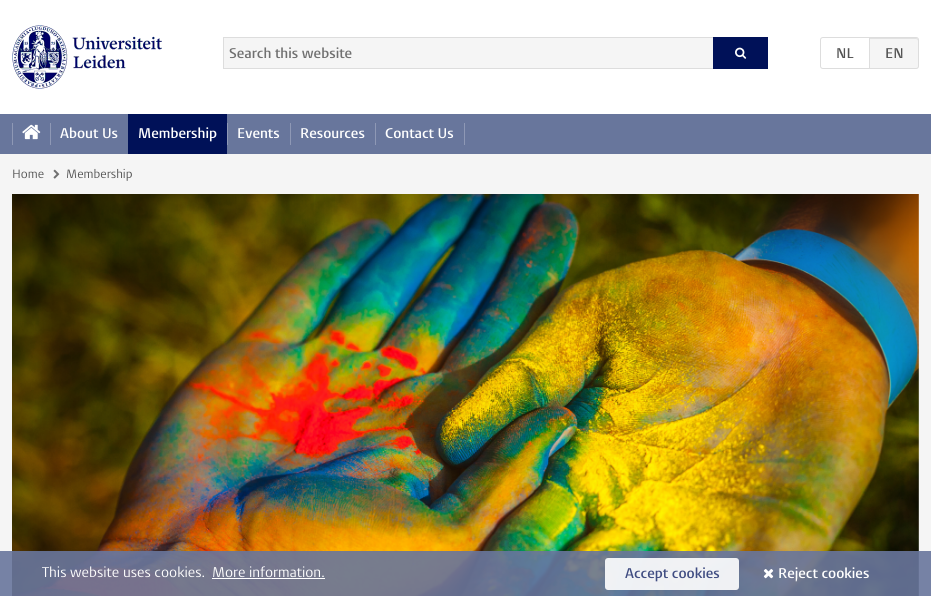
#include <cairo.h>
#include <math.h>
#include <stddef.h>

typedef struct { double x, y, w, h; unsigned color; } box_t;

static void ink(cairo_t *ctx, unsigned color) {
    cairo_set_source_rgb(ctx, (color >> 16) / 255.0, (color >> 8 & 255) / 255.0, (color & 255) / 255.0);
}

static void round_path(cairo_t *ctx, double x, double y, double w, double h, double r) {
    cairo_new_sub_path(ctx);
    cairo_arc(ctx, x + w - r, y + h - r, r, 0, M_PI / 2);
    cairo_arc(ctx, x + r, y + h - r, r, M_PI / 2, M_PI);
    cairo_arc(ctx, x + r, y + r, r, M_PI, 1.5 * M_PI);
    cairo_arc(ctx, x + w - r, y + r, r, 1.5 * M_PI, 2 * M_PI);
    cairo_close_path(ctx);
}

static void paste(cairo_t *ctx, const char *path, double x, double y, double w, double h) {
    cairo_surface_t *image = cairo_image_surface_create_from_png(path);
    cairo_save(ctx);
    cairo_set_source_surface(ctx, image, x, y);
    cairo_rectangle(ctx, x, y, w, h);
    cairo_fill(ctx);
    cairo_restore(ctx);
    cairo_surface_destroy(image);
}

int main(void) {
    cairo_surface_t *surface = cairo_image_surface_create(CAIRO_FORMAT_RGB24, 931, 596);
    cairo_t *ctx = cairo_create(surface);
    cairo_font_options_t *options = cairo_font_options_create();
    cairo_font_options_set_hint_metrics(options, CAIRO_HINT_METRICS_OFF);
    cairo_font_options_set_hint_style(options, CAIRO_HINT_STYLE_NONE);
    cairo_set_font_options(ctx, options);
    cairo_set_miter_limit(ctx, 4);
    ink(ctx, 0xF5F5F5);
    cairo_paint(ctx);
    ink(ctx, 0xFFFFFF);
    cairo_rectangle(ctx, 0, 0, 931, 114);
    cairo_fill(ctx);
    paste(ctx, "media/1.png", 12, 25, 150, 64);
    {
        static const box_t items[] = {
            {224, 38, 489, 30, 0xF5F5F5},
            {223, 37, 490, 1, 0xDDDDDD},
            {223, 68, 490, 1, 0xDDDDDD},
            {223, 37, 1, 32, 0xDDDDDD},
        };
        for (size_t i = 0; i < sizeof items / sizeof *items; i++) {
            ink(ctx, items[i].color);
            cairo_rectangle(ctx, items[i].x, items[i].y, items[i].w, items[i].h);
            cairo_fill(ctx);
        }
    }
    cairo_select_font_face(ctx, "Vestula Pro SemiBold", CAIRO_FONT_SLANT_NORMAL, CAIRO_FONT_WEIGHT_NORMAL);
    cairo_set_font_size(ctx, 14);
    ink(ctx, 0x707070);
    cairo_move_to(ctx, 229, 58);
    cairo_show_text(ctx, "Search this website");
    ink(ctx, 0x001158);
    cairo_rectangle(ctx, 713, 37, 55, 32);
    cairo_fill(ctx);
    paste(ctx, "media/2.png", 735, 47, 12, 12);
    cairo_new_path(ctx);
    cairo_move_to(ctx, 823, 37.5);
    cairo_line_to(ctx, 869.5, 37.5);
    cairo_line_to(ctx, 869.5, 68.5);
    cairo_line_to(ctx, 823, 68.5);
    cairo_curve_to(ctx, 821.5, 68.5, 820.5, 67.5, 820.5, 66);
    cairo_line_to(ctx, 820.5, 40);
    cairo_curve_to(ctx, 820.5, 38.5, 821.5, 37.5, 823, 37.5);
    cairo_close_path(ctx);
    ink(ctx, 0xDDDDDD);
    cairo_set_line_width(ctx, 1);
    cairo_stroke(ctx);
    ink(ctx, 0x535353);
    cairo_move_to(ctx, 836, 58);
    cairo_show_text(ctx, "NL");
    ink(ctx, 0xF5F5F5);
    cairo_new_path(ctx);
    cairo_move_to(ctx, 869, 37);
    cairo_line_to(ctx, 916, 37);
    cairo_curve_to(ctx, 917.5, 37, 919, 38.5, 919, 40);
    cairo_line_to(ctx, 919, 66);
    cairo_curve_to(ctx, 919, 67.5, 917.5, 69, 916, 69);
    cairo_line_to(ctx, 869, 69);
    cairo_close_path(ctx);
    cairo_fill(ctx);
    ink(ctx, 0xE1E1E1);
    cairo_new_path(ctx);
    cairo_move_to(ctx, 870, 39);
    cairo_line_to(ctx, 916, 39);
    cairo_curve_to(ctx, 917, 39, 918, 40, 918, 41);
    cairo_line_to(ctx, 918, 40);
    cairo_curve_to(ctx, 918, 39, 917, 38, 916, 38);
    cairo_line_to(ctx, 870, 38);
    cairo_close_path(ctx);
    cairo_fill(ctx);
    cairo_new_path(ctx);
    cairo_move_to(ctx, 869.5, 37.5);
    cairo_line_to(ctx, 916, 37.5);
    cairo_curve_to(ctx, 917.5, 37.5, 918.5, 38.5, 918.5, 40);
    cairo_line_to(ctx, 918.5, 66);
    cairo_curve_to(ctx, 918.5, 67.5, 917.5, 68.5, 916, 68.5);
    cairo_line_to(ctx, 869.5, 68.5);
    cairo_close_path(ctx);
    ink(ctx, 0xDDDDDD);
    cairo_stroke(ctx);
    ink(ctx, 0x535353);
    cairo_move_to(ctx, 885, 58);
    cairo_show_text(ctx, "EN");
    ink(ctx, 0x68769C);
    cairo_rectangle(ctx, 0, 114, 931, 40);
    cairo_fill(ctx);
    ink(ctx, 0x8E98B5);
    cairo_rectangle(ctx, 12, 123, 1, 22);
    cairo_fill(ctx);
    paste(ctx, "media/3.png", 22, 124, 19, 16);
    cairo_rectangle(ctx, 50, 123, 1, 22);
    cairo_fill(ctx);
    ink(ctx, 0xFFFFFF);
    cairo_move_to(ctx, 60, 138);
    cairo_show_text(ctx, "About Us");
    ink(ctx, 0x001158);
    cairo_rectangle(ctx, 128, 114, 99, 40);
    cairo_fill(ctx);
    ink(ctx, 0xFFFFFF);
    cairo_move_to(ctx, 138, 138);
    cairo_show_text(ctx, "Membership");
    ink(ctx, 0x8E98B5);
    cairo_rectangle(ctx, 227, 123, 1, 22);
    cairo_fill(ctx);
    ink(ctx, 0xFFFFFF);
    cairo_move_to(ctx, 237, 138);
    cairo_show_text(ctx, "Events");
    ink(ctx, 0x8E98B5);
    cairo_rectangle(ctx, 290, 123, 1, 22);
    cairo_fill(ctx);
    ink(ctx, 0xFFFFFF);
    cairo_move_to(ctx, 300, 138);
    cairo_show_text(ctx, "Resources");
    ink(ctx, 0x8E98B5);
    cairo_rectangle(ctx, 464, 123, 1, 22);
    cairo_fill(ctx);
    cairo_rectangle(ctx, 375, 123, 1, 22);
    cairo_fill(ctx);
    ink(ctx, 0xFFFFFF);
    cairo_move_to(ctx, 385, 138);
    cairo_show_text(ctx, "Contact Us");
    cairo_select_font_face(ctx, "Vestula Pro", CAIRO_FONT_SLANT_NORMAL, CAIRO_FONT_WEIGHT_NORMAL);
    cairo_set_font_size(ctx, 12);
    ink(ctx, 0x535353);
    cairo_move_to(ctx, 12, 178);
    cairo_show_text(ctx, "Home");
    paste(ctx, "media/4.png", 53, 169, 7, 10);
    cairo_move_to(ctx, 66, 178);
    cairo_show_text(ctx, "Membership");
    paste(ctx, "media/5.png", 12, 194, 907, 402);
    cairo_set_source_rgba(ctx, 0.408, 0.463, 0.612, 0.9);
    cairo_rectangle(ctx, 0, 551, 931, 45);
    cairo_fill(ctx);
    cairo_set_font_size(ctx, 14);
    ink(ctx, 0xFFFFFF);
    cairo_move_to(ctx, 42, 577);
    cairo_show_text(ctx, "This website uses cookies.");
    cairo_move_to(ctx, 212, 577);
    cairo_show_text(ctx, "More information.");
    cairo_rectangle(ctx, 212, 578, 113, 1);
    cairo_fill(ctx);
    cairo_set_source_rgba(ctx, 1, 1, 1, 0.9);
    round_path(ctx, 605, 558, 134, 32, 3);
    cairo_fill(ctx);
    cairo_select_font_face(ctx, "Vestula Pro SemiBold", CAIRO_FONT_SLANT_NORMAL, CAIRO_FONT_WEIGHT_NORMAL);
    ink(ctx, 0x404D82);
    cairo_move_to(ctx, 625, 578);
    cairo_show_text(ctx, "Accept cookies");
    paste(ctx, "media/6.png", 763, 569, 11, 10);
    ink(ctx, 0xFFFFFF);
    cairo_move_to(ctx, 778, 578);
    cairo_show_text(ctx, "Reject cookies");
    cairo_surface_write_to_png(surface, "image.png");
    cairo_font_options_destroy(options);
    cairo_destroy(ctx);
    cairo_surface_destroy(surface);
    return 0;
}
